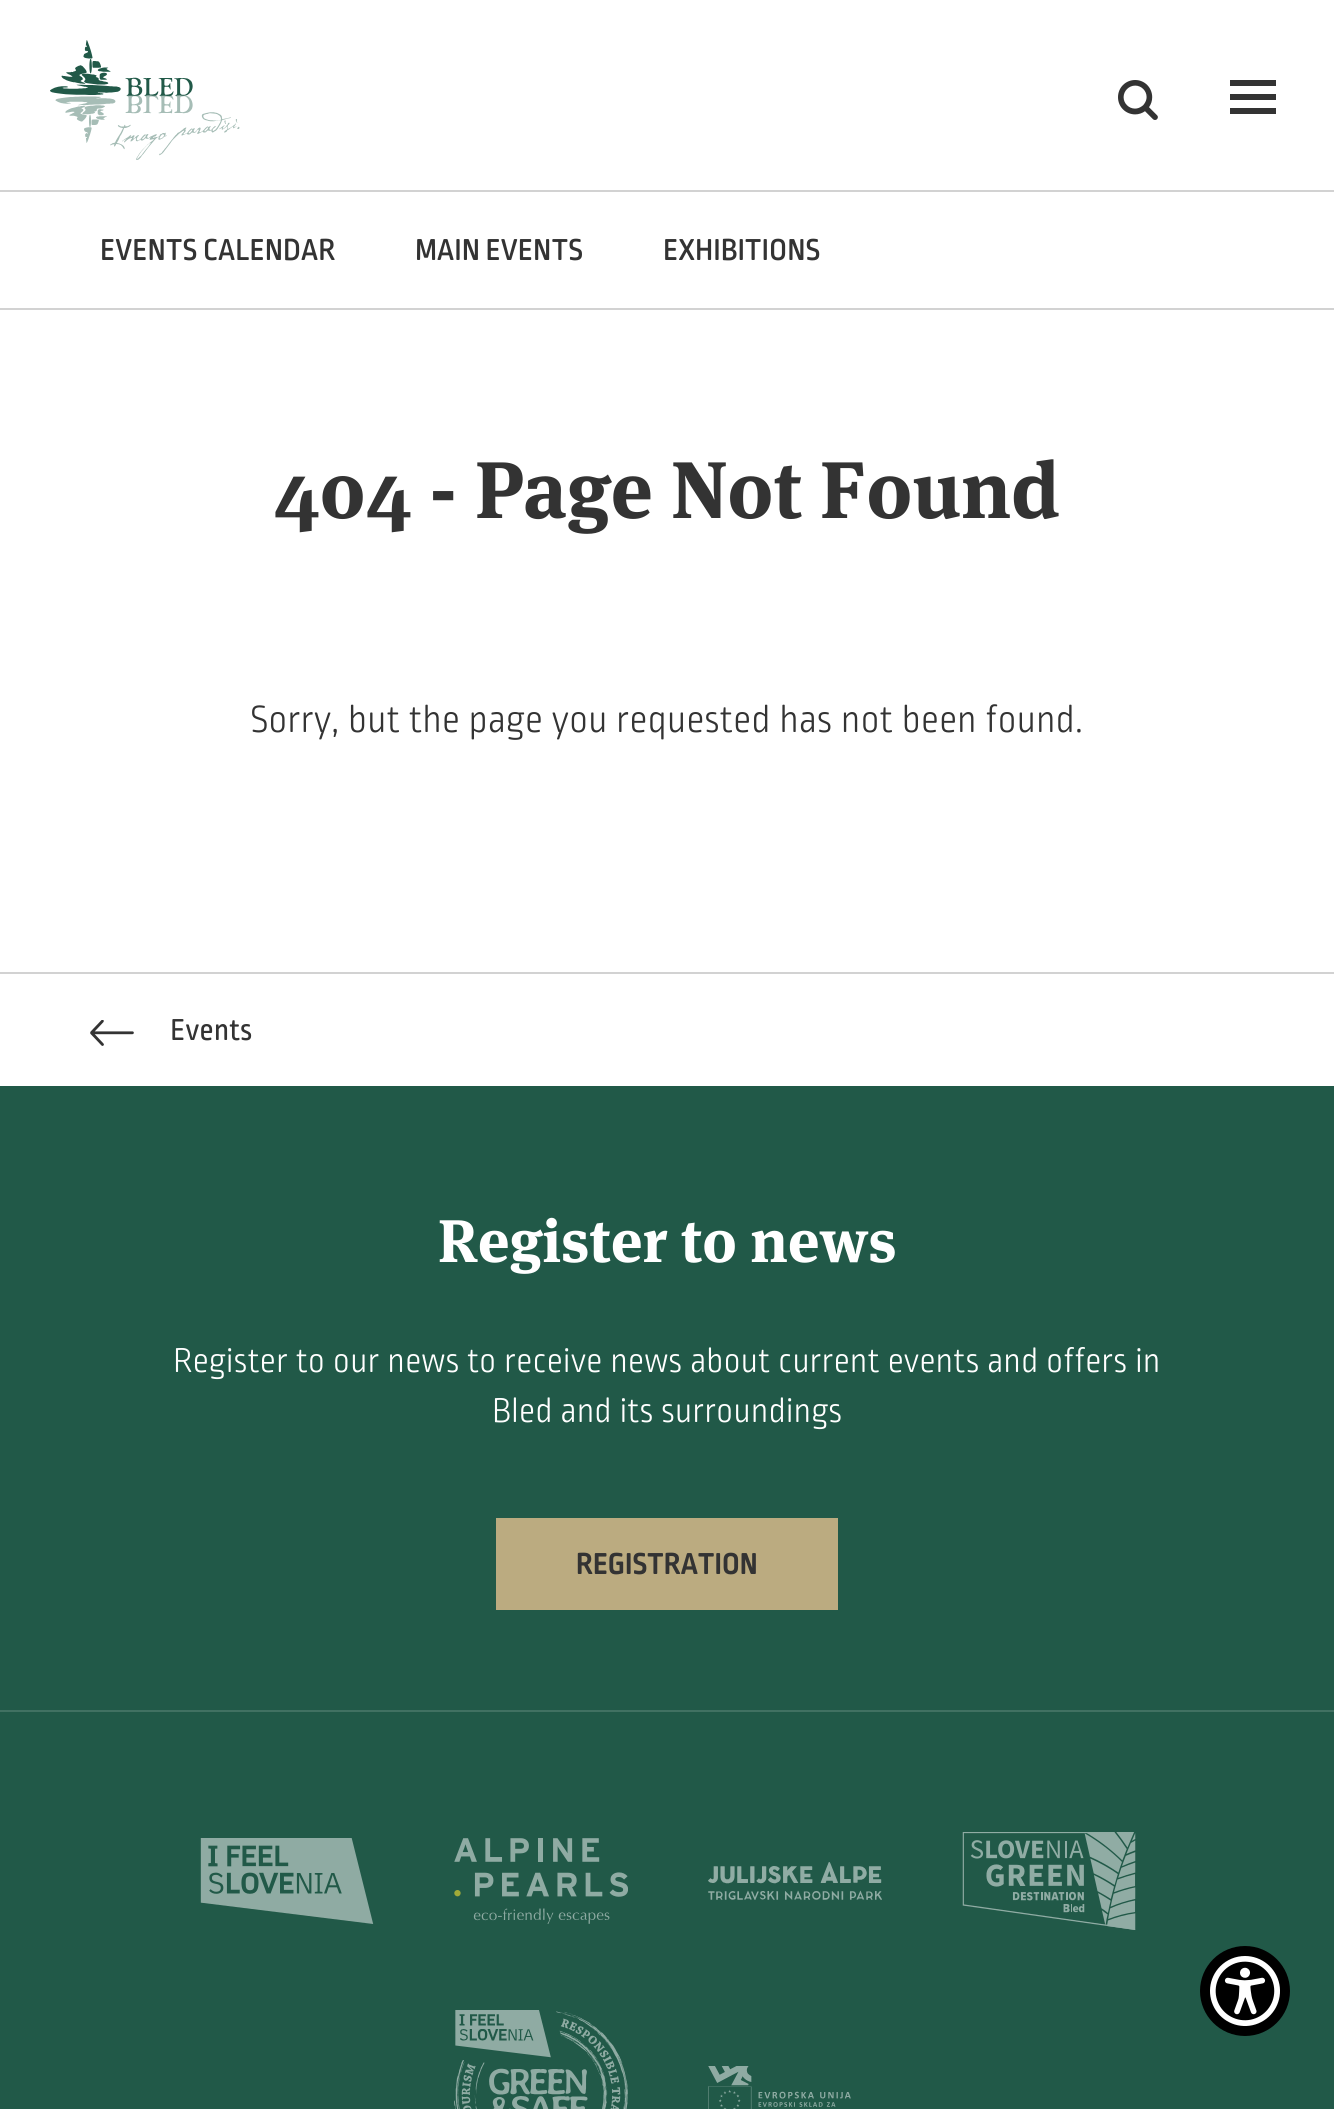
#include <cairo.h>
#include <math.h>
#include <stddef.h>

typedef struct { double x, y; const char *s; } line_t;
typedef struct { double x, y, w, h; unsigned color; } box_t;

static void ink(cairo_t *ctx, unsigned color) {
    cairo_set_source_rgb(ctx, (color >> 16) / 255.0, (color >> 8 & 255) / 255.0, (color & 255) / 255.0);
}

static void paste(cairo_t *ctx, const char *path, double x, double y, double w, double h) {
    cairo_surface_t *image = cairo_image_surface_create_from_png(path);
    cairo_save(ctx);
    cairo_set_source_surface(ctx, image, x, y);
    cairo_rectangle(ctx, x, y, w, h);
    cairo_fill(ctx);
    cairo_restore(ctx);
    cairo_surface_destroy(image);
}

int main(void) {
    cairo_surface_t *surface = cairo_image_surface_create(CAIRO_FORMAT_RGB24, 1334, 2109);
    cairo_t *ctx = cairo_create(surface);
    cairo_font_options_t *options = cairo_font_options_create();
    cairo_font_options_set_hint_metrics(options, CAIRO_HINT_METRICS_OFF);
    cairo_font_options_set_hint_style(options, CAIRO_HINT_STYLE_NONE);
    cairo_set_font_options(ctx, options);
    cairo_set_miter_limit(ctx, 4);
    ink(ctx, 0xFFFFFF);
    cairo_paint(ctx);
    paste(ctx, "media/1.png", 50, 40, 190, 120);
    paste(ctx, "media/2.png", 1118, 80, 40, 40);
    {
        static const box_t items[] = {
            {1230, 80, 46, 6, 0x333333},
            {1230, 94, 46, 6, 0x333333},
            {1230, 108, 46, 6, 0x333333},
            {0, 190, 1334, 2, 0xD2D2D2},
            {0, 308, 1334, 2, 0xD2D2D2},
        };
        for (size_t i = 0; i < sizeof items / sizeof *items; i++) {
            ink(ctx, items[i].color);
            cairo_rectangle(ctx, items[i].x, items[i].y, items[i].w, items[i].h);
            cairo_fill(ctx);
        }
    }
    cairo_select_font_face(ctx, "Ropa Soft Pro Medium", CAIRO_FONT_SLANT_NORMAL, CAIRO_FONT_WEIGHT_NORMAL);
    cairo_set_font_size(ctx, 32);
    ink(ctx, 0x333333);
    {
        static const line_t items[] = {
            {100, 260, "EVENTS CALENDAR"},
            {415, 260, "MAIN EVENTS"},
            {663, 260, "EXHIBITIONS"},
        };
        for (size_t i = 0; i < sizeof items / sizeof *items; i++) {
            cairo_move_to(ctx, items[i].x, items[i].y);
            cairo_show_text(ctx, items[i].s);
        }
    }
    cairo_select_font_face(ctx, "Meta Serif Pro", CAIRO_FONT_SLANT_NORMAL, CAIRO_FONT_WEIGHT_BOLD);
    cairo_set_font_size(ctx, 80);
    cairo_move_to(ctx, 274, 518);
    cairo_show_text(ctx, "404 - Page Not Found");
    cairo_select_font_face(ctx, "Ropa Soft Pro Light", CAIRO_FONT_SLANT_NORMAL, CAIRO_FONT_WEIGHT_NORMAL);
    cairo_set_font_size(ctx, 40);
    cairo_move_to(ctx, 250, 732);
    cairo_show_text(ctx, "Sorry, but the page you requested has not been found.");
    ink(ctx, 0xD2D2D2);
    cairo_rectangle(ctx, 0, 972, 1334, 2);
    cairo_fill(ctx);
    paste(ctx, "media/3.png", 90, 1020, 44, 26);
    cairo_select_font_face(ctx, "Ropa Soft Pro", CAIRO_FONT_SLANT_NORMAL, CAIRO_FONT_WEIGHT_NORMAL);
    cairo_set_font_size(ctx, 32);
    ink(ctx, 0x333333);
    cairo_move_to(ctx, 170, 1040);
    cairo_show_text(ctx, "Events");
    ink(ctx, 0x215948);
    cairo_rectangle(ctx, 0, 1086, 1334, 1023);
    cairo_fill(ctx);
    cairo_select_font_face(ctx, "Meta Serif Pro", CAIRO_FONT_SLANT_NORMAL, CAIRO_FONT_WEIGHT_BOLD);
    cairo_set_font_size(ctx, 60);
    ink(ctx, 0xFFFFFF);
    cairo_move_to(ctx, 438, 1262);
    cairo_show_text(ctx, "Register to news");
    cairo_select_font_face(ctx, "Ropa Soft Pro Light", CAIRO_FONT_SLANT_NORMAL, CAIRO_FONT_WEIGHT_NORMAL);
    cairo_set_font_size(ctx, 36);
    cairo_move_to(ctx, 173, 1372);
    cairo_show_text(ctx, "Register to our news to receive news about current events and offers in");
    cairo_move_to(ctx, 492, 1422);
    cairo_show_text(ctx, "Bled and its surroundings");
    ink(ctx, 0xBBAB80);
    cairo_rectangle(ctx, 496, 1518, 342, 92);
    cairo_fill(ctx);
    cairo_select_font_face(ctx, "Ropa Soft Pro", CAIRO_FONT_SLANT_NORMAL, CAIRO_FONT_WEIGHT_BOLD);
    cairo_set_font_size(ctx, 32);
    ink(ctx, 0x333333);
    cairo_move_to(ctx, 576, 1574);
    cairo_show_text(ctx, "REGISTRATION");
    ink(ctx, 0x417162);
    cairo_rectangle(ctx, 0, 1710, 1334, 2);
    cairo_fill(ctx);
    paste(ctx, "media/4.png", 200, 1838, 174, 86);
    paste(ctx, "media/5.png", 454, 1838, 174, 86);
    paste(ctx, "media/6.png", 708, 1862, 174, 38);
    paste(ctx, "media/7.png", 962, 1832, 174, 98);
    paste(ctx, "media/8.png", 454, 2010, 174, 99);
    paste(ctx, "media/9.png", 708, 2066, 143, 43);
    ink(ctx, 0x000000);
    cairo_arc(ctx, 1245, 1991, 45, 0, 2 * M_PI);
    cairo_fill(ctx);
    paste(ctx, "media/10.png", 1210, 1956, 70, 70);
    cairo_surface_write_to_png(surface, "image.png");
    cairo_font_options_destroy(options);
    cairo_destroy(ctx);
    cairo_surface_destroy(surface);
    return 0;
}
